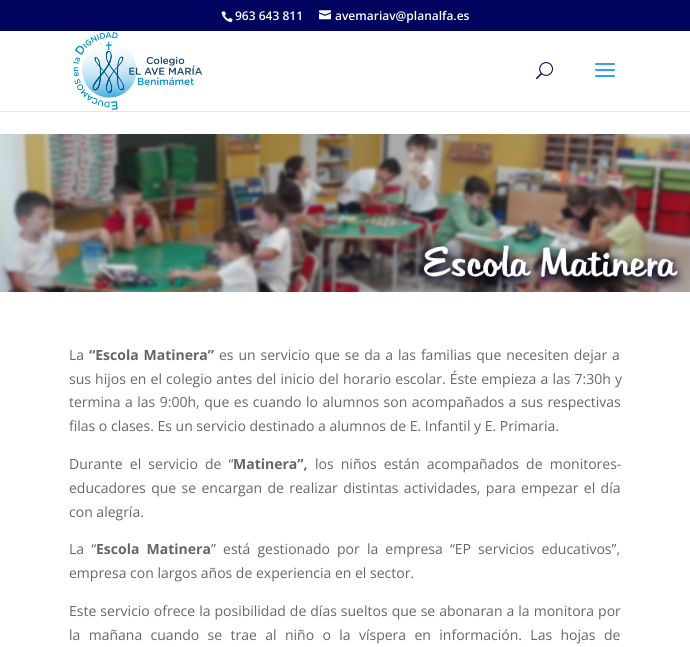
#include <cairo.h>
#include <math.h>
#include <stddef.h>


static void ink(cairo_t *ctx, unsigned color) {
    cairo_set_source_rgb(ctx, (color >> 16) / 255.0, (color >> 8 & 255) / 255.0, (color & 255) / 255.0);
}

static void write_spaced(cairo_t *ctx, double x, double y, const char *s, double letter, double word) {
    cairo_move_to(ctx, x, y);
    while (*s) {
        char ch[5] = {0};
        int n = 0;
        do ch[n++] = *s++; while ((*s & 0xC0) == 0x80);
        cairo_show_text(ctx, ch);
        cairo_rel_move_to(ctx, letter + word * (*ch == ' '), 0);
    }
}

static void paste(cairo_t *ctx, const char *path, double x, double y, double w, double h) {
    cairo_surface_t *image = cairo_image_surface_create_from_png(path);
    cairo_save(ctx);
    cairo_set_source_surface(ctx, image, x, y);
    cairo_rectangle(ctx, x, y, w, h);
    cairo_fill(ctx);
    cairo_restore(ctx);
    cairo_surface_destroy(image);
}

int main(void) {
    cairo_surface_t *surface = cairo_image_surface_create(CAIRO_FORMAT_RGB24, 690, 647);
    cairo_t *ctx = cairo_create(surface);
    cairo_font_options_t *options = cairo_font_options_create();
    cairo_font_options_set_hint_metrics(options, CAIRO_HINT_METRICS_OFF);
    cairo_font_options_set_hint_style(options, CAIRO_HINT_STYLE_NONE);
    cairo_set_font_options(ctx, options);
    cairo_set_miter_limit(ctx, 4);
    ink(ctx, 0xFFFFFF);
    cairo_paint(ctx);
    ink(ctx, 0x00045E);
    cairo_rectangle(ctx, 0, 0, 690, 31);
    cairo_fill(ctx);
    paste(ctx, "media/1.png", 221, 11, 12, 12);
    cairo_select_font_face(ctx, "Open Sans SemiBold", CAIRO_FONT_SLANT_NORMAL, CAIRO_FONT_WEIGHT_NORMAL);
    cairo_set_font_size(ctx, 12);
    ink(ctx, 0xFFFFFF);
    cairo_move_to(ctx, 235, 20);
    cairo_show_text(ctx, "963 643 811");
    paste(ctx, "media/2.png", 319, 10, 12, 10);
    cairo_move_to(ctx, 335, 20);
    cairo_show_text(ctx, "avemariav@planalfa.es");
    ink(ctx, 0xE6E6E6);
    cairo_rectangle(ctx, 0, 111, 690, 1);
    cairo_fill(ctx);
    paste(ctx, "media/3.png", 73, 32, 129, 78);
    paste(ctx, "media/4.png", 536, 62, 17, 18);
    paste(ctx, "media/5.png", 595, 63, 20, 14);
    paste(ctx, "media/6.png", 0, 134, 690, 158);
    cairo_select_font_face(ctx, "Open Sans", CAIRO_FONT_SLANT_NORMAL, CAIRO_FONT_WEIGHT_NORMAL);
    cairo_set_font_size(ctx, 14);
    ink(ctx, 0x666666);
    cairo_move_to(ctx, 69, 360);
    cairo_show_text(ctx, "La");
    cairo_select_font_face(ctx, "Open Sans", CAIRO_FONT_SLANT_NORMAL, CAIRO_FONT_WEIGHT_BOLD);
    write_spaced(ctx, 89, 360, "“Escola Matinera”", 0, 1.25);
    cairo_select_font_face(ctx, "Open Sans", CAIRO_FONT_SLANT_NORMAL, CAIRO_FONT_WEIGHT_NORMAL);
    write_spaced(ctx, 219, 360, "es un servicio que se da a las familias que necesiten dejar a", 0, 1.25);
    write_spaced(ctx, 69, 384, "sus hijos en el colegio antes del inicio del horario escolar. Éste empieza a las 7:30h y", 0, 0.5);
    write_spaced(ctx, 69, 407, "termina a las 9:00h, que es cuando lo alumnos son acompañados a sus respectivas", 0, 0.9);
    cairo_move_to(ctx, 69, 431);
    cairo_show_text(ctx, "filas o clases. Es un servicio destinado a alumnos de E. Infantil y E. Primaria.");
    write_spaced(ctx, 69, 469, "Durante el servicio de “", 0, 3.5);
    cairo_select_font_face(ctx, "Open Sans", CAIRO_FONT_SLANT_NORMAL, CAIRO_FONT_WEIGHT_BOLD);
    cairo_move_to(ctx, 233, 469);
    cairo_show_text(ctx, "Matinera”,");
    cairo_select_font_face(ctx, "Open Sans", CAIRO_FONT_SLANT_NORMAL, CAIRO_FONT_WEIGHT_NORMAL);
    write_spaced(ctx, 315, 469, "los niños están acompañados de monitores-", 0, 3.5);
    write_spaced(ctx, 69, 493, "educadores que se encargan de realizar distintas actividades, para empezar el día", 0, 1.75);
    cairo_move_to(ctx, 69, 517);
    cairo_show_text(ctx, "con alegría.");
    write_spaced(ctx, 69, 554, "La “", 0, 3.5);
    cairo_select_font_face(ctx, "Open Sans", CAIRO_FONT_SLANT_NORMAL, CAIRO_FONT_WEIGHT_BOLD);
    write_spaced(ctx, 96, 554, "Escola Matinera", 0, 3.5);
    cairo_select_font_face(ctx, "Open Sans", CAIRO_FONT_SLANT_NORMAL, CAIRO_FONT_WEIGHT_NORMAL);
    write_spaced(ctx, 211, 554, "” está gestionado por la empresa “EP servicios educativos”,", 0, 3.5);
    cairo_move_to(ctx, 69, 578);
    cairo_show_text(ctx, "empresa con largos años de experiencia en el sector.");
    write_spaced(ctx, 69, 616, "Este servicio ofrece la posibilidad de días sueltos que se abonaran a la monitora por", 0, 0.4);
    write_spaced(ctx, 69, 640, "la mañana cuando se trae al niño o la víspera en información. Las hojas de", 0, 4.75);
    cairo_surface_write_to_png(surface, "image.png");
    cairo_font_options_destroy(options);
    cairo_destroy(ctx);
    cairo_surface_destroy(surface);
    return 0;
}
